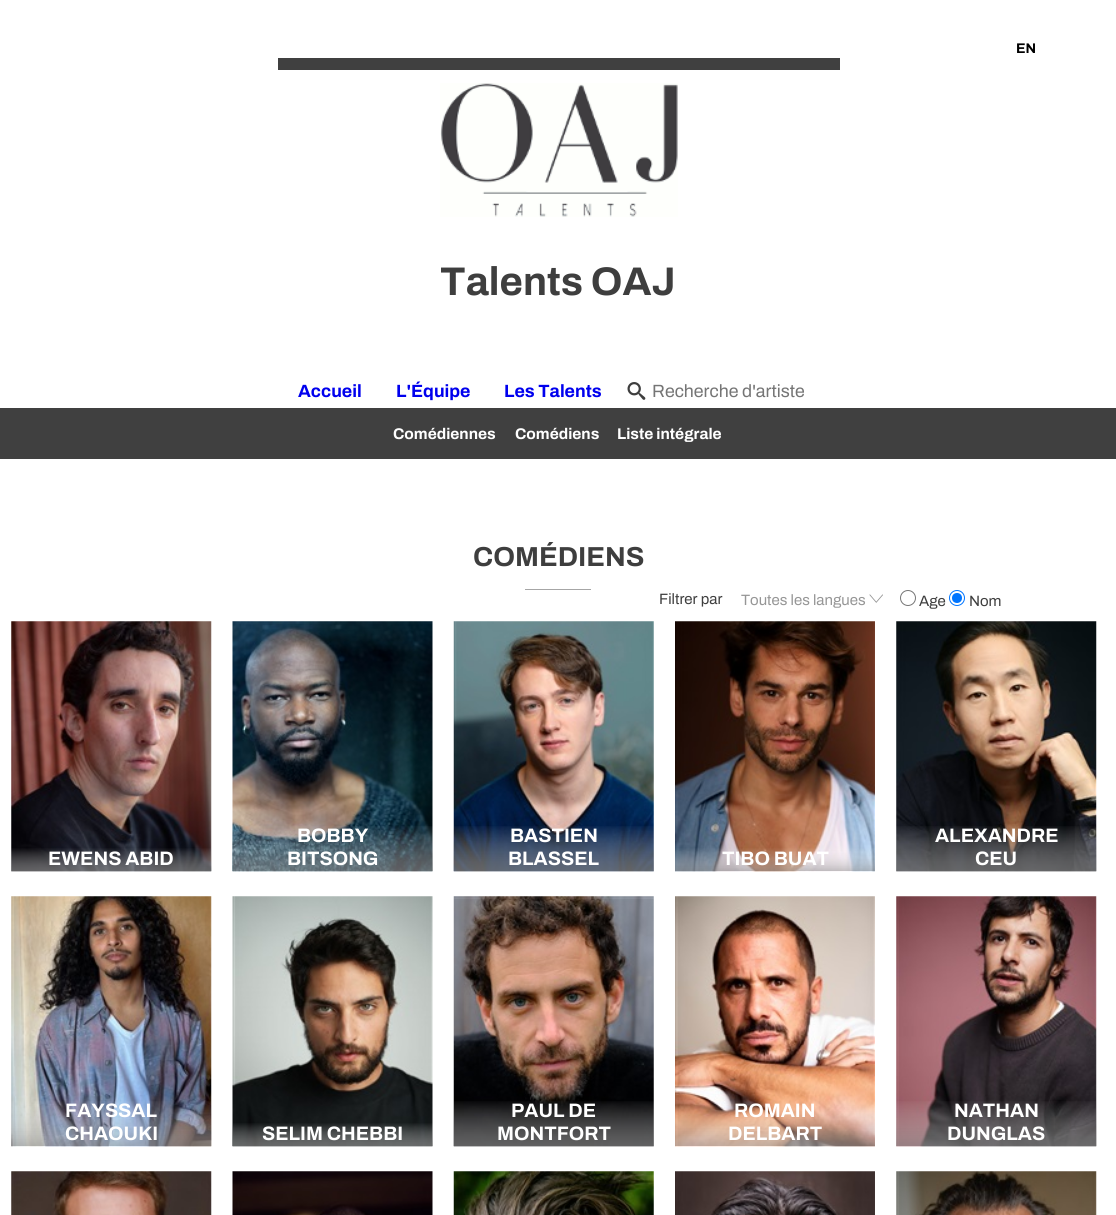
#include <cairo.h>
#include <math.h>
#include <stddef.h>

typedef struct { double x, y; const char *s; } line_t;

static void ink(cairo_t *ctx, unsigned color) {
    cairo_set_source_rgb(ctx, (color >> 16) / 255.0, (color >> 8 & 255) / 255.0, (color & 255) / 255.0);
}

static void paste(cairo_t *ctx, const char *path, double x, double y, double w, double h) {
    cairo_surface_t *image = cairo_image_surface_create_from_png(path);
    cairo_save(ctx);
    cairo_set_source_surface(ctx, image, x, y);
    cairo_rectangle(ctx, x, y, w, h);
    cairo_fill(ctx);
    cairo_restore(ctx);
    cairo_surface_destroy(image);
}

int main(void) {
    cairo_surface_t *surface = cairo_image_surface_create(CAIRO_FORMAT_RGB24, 1116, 1215);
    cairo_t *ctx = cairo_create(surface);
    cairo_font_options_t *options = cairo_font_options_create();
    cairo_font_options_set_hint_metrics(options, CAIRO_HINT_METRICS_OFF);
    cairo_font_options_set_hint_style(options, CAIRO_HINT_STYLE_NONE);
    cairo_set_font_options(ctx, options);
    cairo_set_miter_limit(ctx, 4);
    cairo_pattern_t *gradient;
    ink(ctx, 0xFFFFFF);
    cairo_paint(ctx);
    cairo_select_font_face(ctx, "Archivo", CAIRO_FONT_SLANT_NORMAL, CAIRO_FONT_WEIGHT_BOLD);
    cairo_set_font_size(ctx, 14);
    ink(ctx, 0x000000);
    cairo_move_to(ctx, 1016, 53);
    cairo_show_text(ctx, "EN");
    ink(ctx, 0x404040);
    cairo_rectangle(ctx, 278, 58, 562, 12);
    cairo_fill(ctx);
    paste(ctx, "media/1.png", 440, 83, 238, 134);
    cairo_set_font_size(ctx, 40);
    ink(ctx, 0x3E3E3E);
    cairo_move_to(ctx, 440, 295);
    cairo_show_text(ctx, "Talents OAJ");
    cairo_set_font_size(ctx, 17.75);
    ink(ctx, 0x0000EE);
    {
        static const line_t items[] = {
            {298, 397, "Accueil"},
            {396, 397, "L'Équipe"},
            {504, 397, "Les Talents"},
        };
        for (size_t i = 0; i < sizeof items / sizeof *items; i++) {
            cairo_move_to(ctx, items[i].x, items[i].y);
            cairo_show_text(ctx, items[i].s);
        }
    }
    ink(ctx, 0x404040);
    cairo_rectangle(ctx, 0, 408, 1116, 51);
    cairo_fill(ctx);
    cairo_set_font_size(ctx, 15.5);
    ink(ctx, 0xFFFFFF);
    {
        static const line_t items[] = {
            {393, 439, "Comédiennes"},
            {515, 439, "Comédiens"},
            {617, 439, "Liste intégrale"},
        };
        for (size_t i = 0; i < sizeof items / sizeof *items; i++) {
            cairo_move_to(ctx, items[i].x, items[i].y);
            cairo_show_text(ctx, items[i].s);
        }
    }
    paste(ctx, "media/2.png", 627, 382, 19, 18);
    cairo_select_font_face(ctx, "Archivo", CAIRO_FONT_SLANT_NORMAL, CAIRO_FONT_WEIGHT_NORMAL);
    cairo_set_font_size(ctx, 17.75);
    ink(ctx, 0x757575);
    cairo_move_to(ctx, 652, 397);
    cairo_show_text(ctx, "Recherche d'artiste");
    cairo_select_font_face(ctx, "Archivo", CAIRO_FONT_SLANT_NORMAL, CAIRO_FONT_WEIGHT_BOLD);
    cairo_set_font_size(ctx, 27.5);
    ink(ctx, 0x3E3E3E);
    cairo_move_to(ctx, 473, 566);
    cairo_show_text(ctx, "COMÉDIENS");
    ink(ctx, 0xA6A6A6);
    cairo_rectangle(ctx, 525, 589, 66, 1);
    cairo_fill(ctx);
    cairo_select_font_face(ctx, "Archivo", CAIRO_FONT_SLANT_NORMAL, CAIRO_FONT_WEIGHT_NORMAL);
    cairo_set_font_size(ctx, 15);
    ink(ctx, 0x3E3E3E);
    cairo_move_to(ctx, 659, 604);
    cairo_show_text(ctx, "Filtrer par");
    ink(ctx, 0x969696);
    cairo_move_to(ctx, 741, 605);
    cairo_show_text(ctx, "Toutes les langues");
    paste(ctx, "media/3.png", 869, 594, 14, 9);
    cairo_arc(ctx, 908, 598, 7.5, 0, 2 * M_PI);
    ink(ctx, 0x767676);
    cairo_set_line_width(ctx, 1);
    cairo_stroke(ctx);
    ink(ctx, 0x3E3E3E);
    cairo_move_to(ctx, 919, 606);
    cairo_show_text(ctx, "Age");
    cairo_new_path(ctx);
    cairo_arc(ctx, 957, 598, 7.5, 0, 2 * M_PI);
    ink(ctx, 0x0075FF);
    cairo_stroke(ctx);
    cairo_arc(ctx, 957, 598, 5, 0, 2 * M_PI);
    cairo_fill(ctx);
    ink(ctx, 0x3E3E3E);
    cairo_move_to(ctx, 969, 606);
    cairo_show_text(ctx, "Nom");
    paste(ctx, "media/4.png", 11, 621, 201, 251);
    gradient = cairo_pattern_create_linear(111, 871, 111, 848);
    cairo_pattern_add_color_stop_rgba(gradient, 0, 0.624, 0.624, 0.624, 0.6);
    cairo_pattern_add_color_stop_rgba(gradient, 1, 1, 1, 1, 0.01);
    cairo_set_source(ctx, gradient);
    cairo_pattern_destroy(gradient);
    cairo_rectangle(ctx, 11, 848, 200, 23);
    cairo_fill(ctx);
    cairo_select_font_face(ctx, "Archivo", CAIRO_FONT_SLANT_NORMAL, CAIRO_FONT_WEIGHT_BOLD);
    cairo_set_font_size(ctx, 19.5);
    ink(ctx, 0xFFFFFF);
    cairo_move_to(ctx, 48, 865);
    cairo_show_text(ctx, "EWENS ABID");
    paste(ctx, "media/5.png", 232, 621, 201, 251);
    gradient = cairo_pattern_create_linear(333, 871, 333, 825);
    cairo_pattern_add_color_stop_rgba(gradient, 0, 0.624, 0.624, 0.624, 0.6);
    cairo_pattern_add_color_stop_rgba(gradient, 1, 1, 1, 1, 0.01);
    cairo_set_source(ctx, gradient);
    cairo_pattern_destroy(gradient);
    cairo_rectangle(ctx, 233, 826, 200, 45);
    cairo_fill(ctx);
    ink(ctx, 0xFFFFFF);
    cairo_move_to(ctx, 297, 842);
    cairo_show_text(ctx, "BOBBY");
    cairo_move_to(ctx, 287, 865);
    cairo_show_text(ctx, "BITSONG");
    paste(ctx, "media/6.png", 453, 621, 201, 251);
    gradient = cairo_pattern_create_linear(554, 871, 554, 825);
    cairo_pattern_add_color_stop_rgba(gradient, 0, 0.624, 0.624, 0.624, 0.6);
    cairo_pattern_add_color_stop_rgba(gradient, 1, 1, 1, 1, 0.01);
    cairo_set_source(ctx, gradient);
    cairo_pattern_destroy(gradient);
    cairo_rectangle(ctx, 454, 826, 200, 45);
    cairo_fill(ctx);
    ink(ctx, 0xFFFFFF);
    cairo_move_to(ctx, 510, 842);
    cairo_show_text(ctx, "BASTIEN");
    cairo_move_to(ctx, 508, 865);
    cairo_show_text(ctx, "BLASSEL");
    paste(ctx, "media/7.png", 675, 621, 200, 251);
    cairo_move_to(ctx, 722, 865);
    cairo_show_text(ctx, "TIBO BUAT");
    paste(ctx, "media/8.png", 896, 621, 201, 251);
    gradient = cairo_pattern_create_linear(996, 871, 996, 825);
    cairo_pattern_add_color_stop_rgba(gradient, 0, 0.624, 0.624, 0.624, 0.6);
    cairo_pattern_add_color_stop_rgba(gradient, 1, 1, 1, 1, 0.01);
    cairo_set_source(ctx, gradient);
    cairo_pattern_destroy(gradient);
    cairo_rectangle(ctx, 896, 826, 200, 45);
    cairo_fill(ctx);
    ink(ctx, 0xFFFFFF);
    cairo_move_to(ctx, 935, 842);
    cairo_show_text(ctx, "ALEXANDRE");
    cairo_move_to(ctx, 975, 865);
    cairo_show_text(ctx, "CEU");
    paste(ctx, "media/9.png", 11, 896, 201, 251);
    gradient = cairo_pattern_create_linear(111, 1146, 111, 1100);
    cairo_pattern_add_color_stop_rgba(gradient, 0, 0.624, 0.624, 0.624, 0.6);
    cairo_pattern_add_color_stop_rgba(gradient, 1, 1, 1, 1, 0.01);
    cairo_set_source(ctx, gradient);
    cairo_pattern_destroy(gradient);
    cairo_rectangle(ctx, 11, 1101, 200, 45);
    cairo_fill(ctx);
    ink(ctx, 0xFFFFFF);
    cairo_move_to(ctx, 65, 1117);
    cairo_show_text(ctx, "FAYSSAL");
    cairo_move_to(ctx, 65, 1140);
    cairo_show_text(ctx, "CHAOUKI");
    paste(ctx, "media/10.png", 232, 896, 201, 251);
    gradient = cairo_pattern_create_linear(333, 1146, 333, 1123);
    cairo_pattern_add_color_stop_rgba(gradient, 0, 0.624, 0.624, 0.624, 0.6);
    cairo_pattern_add_color_stop_rgba(gradient, 1, 1, 1, 1, 0.01);
    cairo_set_source(ctx, gradient);
    cairo_pattern_destroy(gradient);
    cairo_rectangle(ctx, 233, 1123, 200, 23);
    cairo_fill(ctx);
    ink(ctx, 0xFFFFFF);
    cairo_move_to(ctx, 262, 1140);
    cairo_show_text(ctx, "SELIM CHEBBI");
    paste(ctx, "media/11.png", 453, 896, 201, 251);
    gradient = cairo_pattern_create_linear(554, 1146, 554, 1100);
    cairo_pattern_add_color_stop_rgba(gradient, 0, 0.624, 0.624, 0.624, 0.6);
    cairo_pattern_add_color_stop_rgba(gradient, 1, 1, 1, 1, 0.01);
    cairo_set_source(ctx, gradient);
    cairo_pattern_destroy(gradient);
    cairo_rectangle(ctx, 454, 1101, 200, 45);
    cairo_fill(ctx);
    ink(ctx, 0xFFFFFF);
    cairo_move_to(ctx, 511, 1117);
    cairo_show_text(ctx, "PAUL DE");
    cairo_move_to(ctx, 497, 1140);
    cairo_show_text(ctx, "MONTFORT");
    paste(ctx, "media/12.png", 675, 896, 200, 251);
    cairo_move_to(ctx, 734, 1117);
    cairo_show_text(ctx, "ROMAIN");
    cairo_move_to(ctx, 728, 1140);
    cairo_show_text(ctx, "DELBART");
    paste(ctx, "media/13.png", 896, 896, 201, 251);
    gradient = cairo_pattern_create_linear(996, 1146, 996, 1100);
    cairo_pattern_add_color_stop_rgba(gradient, 0, 0.624, 0.624, 0.624, 0.6);
    cairo_pattern_add_color_stop_rgba(gradient, 1, 1, 1, 1, 0.01);
    cairo_set_source(ctx, gradient);
    cairo_pattern_destroy(gradient);
    cairo_rectangle(ctx, 896, 1101, 200, 45);
    cairo_fill(ctx);
    ink(ctx, 0xFFFFFF);
    cairo_move_to(ctx, 954, 1117);
    cairo_show_text(ctx, "NATHAN");
    cairo_move_to(ctx, 947, 1140);
    cairo_show_text(ctx, "DUNGLAS");
    paste(ctx, "media/14.png", 11, 1171, 201, 44);
    paste(ctx, "media/15.png", 232, 1171, 201, 44);
    paste(ctx, "media/16.png", 453, 1171, 201, 44);
    paste(ctx, "media/17.png", 675, 1171, 200, 44);
    paste(ctx, "media/18.png", 896, 1171, 201, 44);
    cairo_surface_write_to_png(surface, "image.png");
    cairo_font_options_destroy(options);
    cairo_destroy(ctx);
    cairo_surface_destroy(surface);
    return 0;
}
